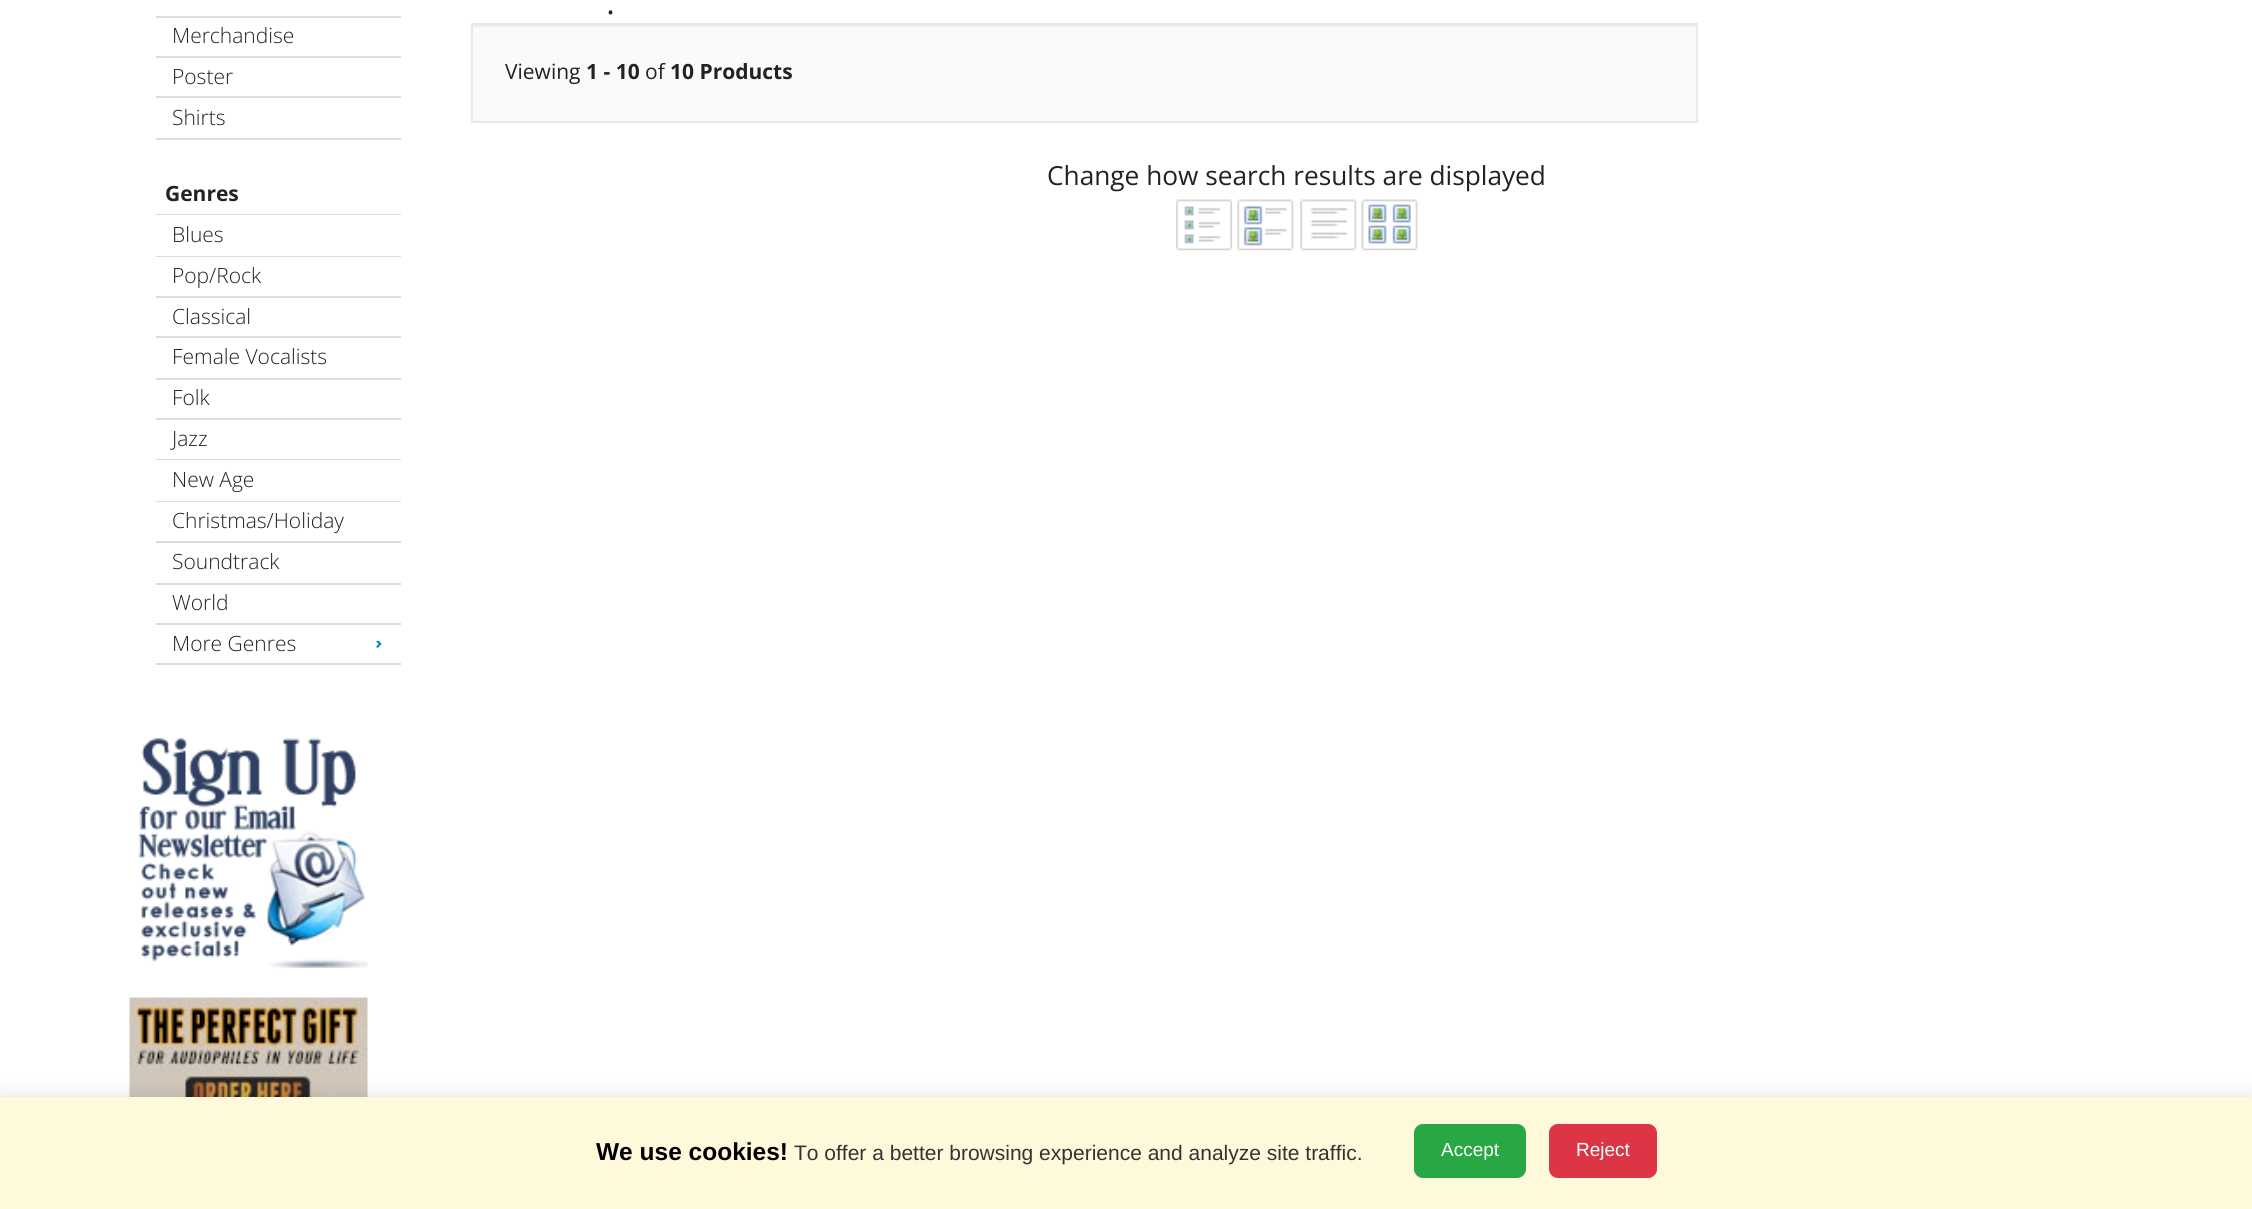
#include <cairo.h>
#include <math.h>
#include <stddef.h>


static void ink(cairo_t *ctx, unsigned color) {
    cairo_set_source_rgb(ctx, (color >> 16) / 255.0, (color >> 8 & 255) / 255.0, (color & 255) / 255.0);
}

static void round_path(cairo_t *ctx, double x, double y, double w, double h, double r) {
    cairo_new_sub_path(ctx);
    cairo_arc(ctx, x + w - r, y + h - r, r, 0, M_PI / 2);
    cairo_arc(ctx, x + r, y + h - r, r, M_PI / 2, M_PI);
    cairo_arc(ctx, x + r, y + r, r, M_PI, 1.5 * M_PI);
    cairo_arc(ctx, x + w - r, y + r, r, 1.5 * M_PI, 2 * M_PI);
    cairo_close_path(ctx);
}

static void blur_box(cairo_t *ctx, double x, double y, double w, double h, double r, double blur, double alpha) {
    cairo_push_group_with_content(ctx, CAIRO_CONTENT_ALPHA);
    cairo_set_operator(ctx, CAIRO_OPERATOR_SOURCE);
    for (int i = 15; i >= -15 && fmin(w, h) + blur * i / 3 > 0; i -= 2) {
        double e = blur * i / 6;
        cairo_set_source_rgba(ctx, 0, 0, 0, alpha * erfc((i - 1) / 8.5) / 2);
        round_path(ctx, x - e, y - e, w + 2 * e, h + 2 * e, fmax(0, fmin(r + e + blur * .6, fmin(w, h) / 2 + e)));
        cairo_fill(ctx);
    }
    cairo_pattern_t *soft = cairo_pop_group(ctx);
    cairo_mask(ctx, soft);
    cairo_pattern_destroy(soft);
}

static void paste(cairo_t *ctx, const char *path, double x, double y, double w, double h) {
    cairo_surface_t *image = cairo_image_surface_create_from_png(path);
    cairo_save(ctx);
    cairo_set_source_surface(ctx, image, x, y);
    cairo_rectangle(ctx, x, y, w, h);
    cairo_fill(ctx);
    cairo_restore(ctx);
    cairo_surface_destroy(image);
}

int main(void) {
    cairo_surface_t *surface = cairo_image_surface_create(CAIRO_FORMAT_RGB24, 2252, 1209);
    cairo_t *ctx = cairo_create(surface);
    cairo_font_options_t *options = cairo_font_options_create();
    cairo_font_options_set_hint_metrics(options, CAIRO_HINT_METRICS_OFF);
    cairo_font_options_set_hint_style(options, CAIRO_HINT_STYLE_NONE);
    cairo_set_font_options(ctx, options);
    cairo_set_miter_limit(ctx, 4);
    ink(ctx, 0xFFFFFF);
    cairo_paint(ctx);
    ink(ctx, 0xDDDDDD);
    cairo_rectangle(ctx, 156, 16, 245, 2);
    cairo_fill(ctx);
    cairo_rectangle(ctx, 156, 56, 245, 2);
    cairo_fill(ctx);
    cairo_select_font_face(ctx, "Open Sans Light", CAIRO_FONT_SLANT_NORMAL, CAIRO_FONT_WEIGHT_NORMAL);
    cairo_set_font_size(ctx, 21);
    ink(ctx, 0x222222);
    cairo_move_to(ctx, 172, 43);
    cairo_show_text(ctx, "Merchandise");
    ink(ctx, 0xDDDDDD);
    cairo_rectangle(ctx, 156, 96, 245, 2);
    cairo_fill(ctx);
    ink(ctx, 0x222222);
    cairo_move_to(ctx, 172, 84);
    cairo_show_text(ctx, "Poster");
    ink(ctx, 0xDDDDDD);
    cairo_rectangle(ctx, 156, 138, 245, 2);
    cairo_fill(ctx);
    ink(ctx, 0x222222);
    cairo_move_to(ctx, 172, 125);
    cairo_show_text(ctx, "Shirts");
    ink(ctx, 0xDDDDDD);
    cairo_rectangle(ctx, 156, 214, 245, 1);
    cairo_fill(ctx);
    cairo_select_font_face(ctx, "Open Sans", CAIRO_FONT_SLANT_NORMAL, CAIRO_FONT_WEIGHT_BOLD);
    ink(ctx, 0x222222);
    cairo_move_to(ctx, 165, 201);
    cairo_show_text(ctx, "Genres");
    ink(ctx, 0xDDDDDD);
    cairo_rectangle(ctx, 156, 256, 245, 1);
    cairo_fill(ctx);
    cairo_select_font_face(ctx, "Open Sans Light", CAIRO_FONT_SLANT_NORMAL, CAIRO_FONT_WEIGHT_NORMAL);
    ink(ctx, 0x222222);
    cairo_move_to(ctx, 172, 242);
    cairo_show_text(ctx, "Blues");
    ink(ctx, 0xDDDDDD);
    cairo_rectangle(ctx, 156, 296, 245, 2);
    cairo_fill(ctx);
    ink(ctx, 0x222222);
    cairo_move_to(ctx, 172, 283);
    cairo_show_text(ctx, "Pop/Rock");
    ink(ctx, 0xDDDDDD);
    cairo_rectangle(ctx, 156, 336, 245, 2);
    cairo_fill(ctx);
    ink(ctx, 0x222222);
    cairo_move_to(ctx, 172, 324);
    cairo_show_text(ctx, "Classical");
    ink(ctx, 0xDDDDDD);
    cairo_rectangle(ctx, 156, 378, 245, 2);
    cairo_fill(ctx);
    ink(ctx, 0x222222);
    cairo_move_to(ctx, 172, 364);
    cairo_show_text(ctx, "Female Vocalists");
    ink(ctx, 0xDDDDDD);
    cairo_rectangle(ctx, 156, 418, 245, 2);
    cairo_fill(ctx);
    ink(ctx, 0x222222);
    cairo_move_to(ctx, 172, 405);
    cairo_show_text(ctx, "Folk");
    ink(ctx, 0xDDDDDD);
    cairo_rectangle(ctx, 156, 459, 245, 1);
    cairo_fill(ctx);
    ink(ctx, 0x222222);
    cairo_move_to(ctx, 172, 446);
    cairo_show_text(ctx, "Jazz");
    ink(ctx, 0xDDDDDD);
    cairo_rectangle(ctx, 156, 501, 245, 1);
    cairo_fill(ctx);
    ink(ctx, 0x222222);
    cairo_move_to(ctx, 172, 487);
    cairo_show_text(ctx, "New Age");
    ink(ctx, 0xDDDDDD);
    cairo_rectangle(ctx, 156, 541, 245, 2);
    cairo_fill(ctx);
    ink(ctx, 0x222222);
    cairo_move_to(ctx, 172, 528);
    cairo_show_text(ctx, "Christmas/Holiday");
    ink(ctx, 0xDDDDDD);
    cairo_rectangle(ctx, 156, 583, 245, 2);
    cairo_fill(ctx);
    ink(ctx, 0x222222);
    cairo_move_to(ctx, 172, 569);
    cairo_show_text(ctx, "Soundtrack");
    ink(ctx, 0xDDDDDD);
    cairo_rectangle(ctx, 156, 623, 245, 2);
    cairo_fill(ctx);
    ink(ctx, 0x222222);
    cairo_move_to(ctx, 172, 610);
    cairo_show_text(ctx, "World");
    ink(ctx, 0xDDDDDD);
    cairo_rectangle(ctx, 156, 663, 245, 2);
    cairo_fill(ctx);
    ink(ctx, 0x222222);
    cairo_move_to(ctx, 172, 651);
    cairo_show_text(ctx, "More Genres");
    paste(ctx, "media/1.png", 376, 641, 6, 7);
    paste(ctx, "media/2.png", 138, 738, 230, 230);
    paste(ctx, "media/3.png", 129, 997, 239, 100);
    cairo_set_font_size(ctx, 46);
    cairo_move_to(ctx, 605, 14);
    cairo_show_text(ctx, ".");
    ink(ctx, 0xFAFAFA);
    cairo_rectangle(ctx, 473, 27, 1223, 94);
    cairo_fill(ctx);
    ink(ctx, 0xEEEEEE);
    cairo_rectangle(ctx, 473, 25, 1223, 2);
    cairo_fill(ctx);
    cairo_rectangle(ctx, 472, 24, 1225, 98);
    ink(ctx, 0xE8E8E8);
    cairo_stroke(ctx);
    cairo_select_font_face(ctx, "Open Sans", CAIRO_FONT_SLANT_NORMAL, CAIRO_FONT_WEIGHT_NORMAL);
    cairo_set_font_size(ctx, 21);
    ink(ctx, 0x222222);
    cairo_move_to(ctx, 505, 79);
    cairo_show_text(ctx, "Viewing");
    cairo_select_font_face(ctx, "Open Sans", CAIRO_FONT_SLANT_NORMAL, CAIRO_FONT_WEIGHT_BOLD);
    cairo_move_to(ctx, 586, 79);
    cairo_show_text(ctx, "1 - 10");
    cairo_select_font_face(ctx, "Open Sans", CAIRO_FONT_SLANT_NORMAL, CAIRO_FONT_WEIGHT_NORMAL);
    cairo_move_to(ctx, 645, 79);
    cairo_show_text(ctx, "of");
    cairo_select_font_face(ctx, "Open Sans", CAIRO_FONT_SLANT_NORMAL, CAIRO_FONT_WEIGHT_BOLD);
    cairo_move_to(ctx, 670, 79);
    cairo_show_text(ctx, "10 Products");
    cairo_select_font_face(ctx, "Open Sans", CAIRO_FONT_SLANT_NORMAL, CAIRO_FONT_WEIGHT_NORMAL);
    cairo_set_font_size(ctx, 26.25);
    cairo_move_to(ctx, 1047, 185);
    cairo_show_text(ctx, "Change how search results are displayed");
    paste(ctx, "media/4.png", 1176, 199, 56, 52);
    paste(ctx, "media/5.png", 1237, 199, 57, 52);
    paste(ctx, "media/6.png", 1300, 199, 57, 52);
    paste(ctx, "media/7.png", 1361, 199, 57, 52);
    ink(ctx, 0x000000);
    blur_box(ctx, 0, 1094, 2252, 112, 0, 9, 0.1);
    ink(ctx, 0xFFF9DB);
    cairo_rectangle(ctx, 0, 1097, 2252, 112);
    cairo_fill(ctx);
    cairo_select_font_face(ctx, "Liberation Sans", CAIRO_FONT_SLANT_NORMAL, CAIRO_FONT_WEIGHT_BOLD);
    cairo_set_font_size(ctx, 24.5);
    ink(ctx, 0x000000);
    cairo_move_to(ctx, 596, 1160);
    cairo_show_text(ctx, "We use cookies!");
    cairo_select_font_face(ctx, "Liberation Sans", CAIRO_FONT_SLANT_NORMAL, CAIRO_FONT_WEIGHT_NORMAL);
    cairo_set_font_size(ctx, 21);
    ink(ctx, 0x333333);
    cairo_move_to(ctx, 794, 1160);
    cairo_show_text(ctx, "To offer a better browsing experience and analyze site traffic.");
    ink(ctx, 0x28A745);
    round_path(ctx, 1414, 1124, 112, 54, 9);
    cairo_fill(ctx);
    cairo_set_font_size(ctx, 19);
    ink(ctx, 0xFFFFFF);
    cairo_move_to(ctx, 1441, 1156);
    cairo_show_text(ctx, "Accept");
    ink(ctx, 0xDC3545);
    round_path(ctx, 1549, 1124, 108, 54, 9);
    cairo_fill(ctx);
    ink(ctx, 0xFFFFFF);
    cairo_move_to(ctx, 1576, 1156);
    cairo_show_text(ctx, "Reject");
    cairo_surface_write_to_png(surface, "image.png");
    cairo_font_options_destroy(options);
    cairo_destroy(ctx);
    cairo_surface_destroy(surface);
    return 0;
}
